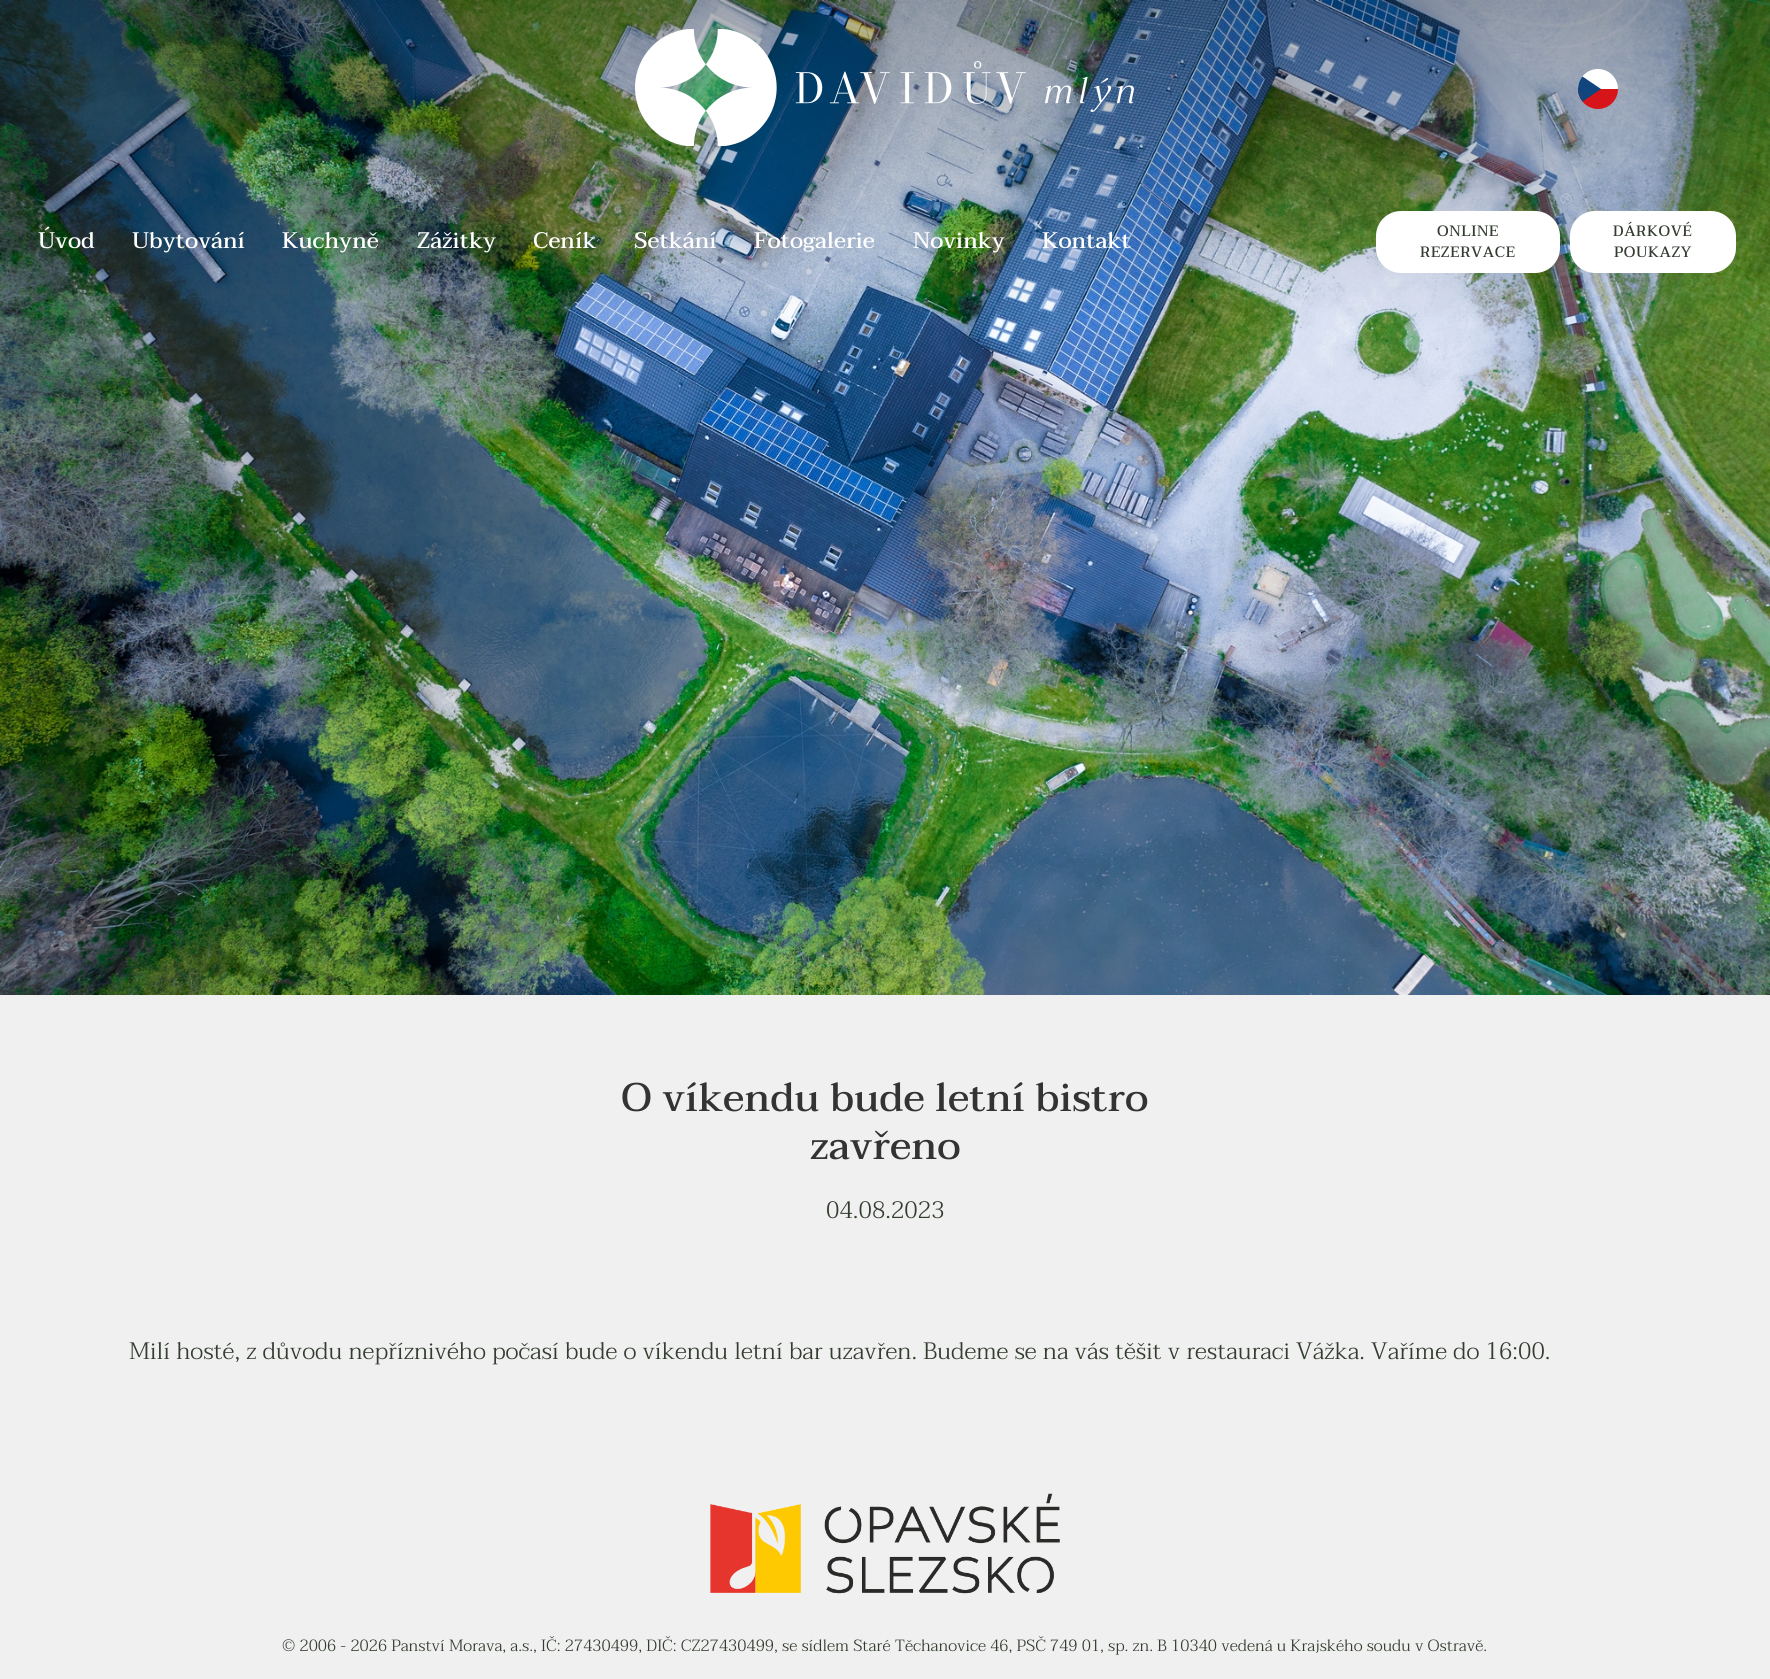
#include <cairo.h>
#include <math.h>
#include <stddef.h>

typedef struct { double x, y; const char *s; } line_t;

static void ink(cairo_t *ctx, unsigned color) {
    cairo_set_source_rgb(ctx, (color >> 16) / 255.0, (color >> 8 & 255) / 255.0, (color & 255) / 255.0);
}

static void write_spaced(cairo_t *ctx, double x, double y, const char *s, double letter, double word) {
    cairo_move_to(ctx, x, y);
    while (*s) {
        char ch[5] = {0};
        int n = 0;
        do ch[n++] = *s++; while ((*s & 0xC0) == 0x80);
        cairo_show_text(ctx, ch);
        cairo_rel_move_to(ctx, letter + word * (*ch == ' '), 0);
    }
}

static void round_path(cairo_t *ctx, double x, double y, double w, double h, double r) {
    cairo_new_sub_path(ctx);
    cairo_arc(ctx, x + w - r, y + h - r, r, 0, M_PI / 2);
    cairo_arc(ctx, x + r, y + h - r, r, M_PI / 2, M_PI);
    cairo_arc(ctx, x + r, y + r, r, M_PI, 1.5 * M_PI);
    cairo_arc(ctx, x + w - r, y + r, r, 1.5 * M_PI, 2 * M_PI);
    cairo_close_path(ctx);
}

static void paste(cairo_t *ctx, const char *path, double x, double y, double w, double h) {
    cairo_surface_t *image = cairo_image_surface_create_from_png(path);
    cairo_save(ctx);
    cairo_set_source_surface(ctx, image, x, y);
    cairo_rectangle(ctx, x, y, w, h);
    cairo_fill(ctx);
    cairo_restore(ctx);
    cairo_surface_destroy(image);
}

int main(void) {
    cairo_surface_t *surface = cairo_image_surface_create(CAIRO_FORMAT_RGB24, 1770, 1679);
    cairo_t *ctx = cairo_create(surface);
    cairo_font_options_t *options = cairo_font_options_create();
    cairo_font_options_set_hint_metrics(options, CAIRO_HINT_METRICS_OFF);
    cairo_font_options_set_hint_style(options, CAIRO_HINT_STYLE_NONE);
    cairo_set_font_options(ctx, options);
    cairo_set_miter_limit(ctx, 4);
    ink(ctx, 0xEFF0EF);
    cairo_paint(ctx);
    paste(ctx, "media/1.png", 0, 0, 1770, 995);
    paste(ctx, "media/2.png", 635, 29, 499, 117);
    ink(ctx, 0xFFFFFF);
    cairo_new_path(ctx);
    cairo_move_to(ctx, 1598, 69);
    cairo_curve_to(ctx, 1609, 69, 1618, 78, 1618, 89);
    cairo_line_to(ctx, 1578, 89);
    cairo_curve_to(ctx, 1578, 78, 1587, 69, 1598, 69);
    cairo_close_path(ctx);
    cairo_fill(ctx);
    ink(ctx, 0xD7141A);
    cairo_new_path(ctx);
    cairo_move_to(ctx, 1578, 89);
    cairo_line_to(ctx, 1618, 89);
    cairo_curve_to(ctx, 1618, 100, 1609, 109, 1598, 109);
    cairo_curve_to(ctx, 1587, 109, 1578, 100, 1578, 89);
    cairo_close_path(ctx);
    cairo_fill(ctx);
    ink(ctx, 0x11457E);
    cairo_new_path(ctx);
    cairo_move_to(ctx, 1601, 89);
    cairo_line_to(ctx, 1582.5, 101.5);
    cairo_curve_to(ctx, 1576.5, 94, 1576.5, 83.5, 1582.5, 76.5);
    cairo_close_path(ctx);
    cairo_fill(ctx);
    cairo_select_font_face(ctx, "Taviraj Medium", CAIRO_FONT_SLANT_NORMAL, CAIRO_FONT_WEIGHT_NORMAL);
    cairo_set_font_size(ctx, 22.5);
    ink(ctx, 0xFFFFFF);
    {
        static const line_t items[] = {
            {38, 248, "Úvod"},
            {132, 248, "Ubytování"},
            {282, 248, "Kuchyně"},
            {417, 248, "Zážitky"},
            {533, 248, "Ceník"},
            {634, 248, "Setkání"},
            {754, 248, "Fotogalerie"},
            {913, 248, "Novinky"},
            {1042, 248, "Kontakt"},
        };
        for (size_t i = 0; i < sizeof items / sizeof *items; i++) {
            cairo_move_to(ctx, items[i].x, items[i].y);
            cairo_show_text(ctx, items[i].s);
        }
    }
    round_path(ctx, 1376, 211, 184, 62, 25);
    cairo_fill(ctx);
    cairo_set_font_size(ctx, 15);
    ink(ctx, 0x333C30);
    write_spaced(ctx, 1437, 236, "ONLINE", 0.6, 0);
    write_spaced(ctx, 1420, 257, "REZERVACE", 0.6, 0);
    ink(ctx, 0xFFFFFF);
    round_path(ctx, 1570, 211, 166, 62, 25);
    cairo_fill(ctx);
    ink(ctx, 0x333C30);
    write_spaced(ctx, 1613, 236, "DÁRKOVÉ", 0.6, 0);
    write_spaced(ctx, 1614, 257, "POUKAZY", 0.6, 0);
    cairo_set_font_size(ctx, 40);
    ink(ctx, 0x333333);
    cairo_move_to(ctx, 621, 1111);
    cairo_show_text(ctx, "O víkendu bude letní bistro");
    cairo_move_to(ctx, 810, 1159);
    cairo_show_text(ctx, "zavřeno");
    cairo_select_font_face(ctx, "Taviraj Light", CAIRO_FONT_SLANT_NORMAL, CAIRO_FONT_WEIGHT_NORMAL);
    cairo_set_font_size(ctx, 23.75);
    ink(ctx, 0x333C30);
    cairo_move_to(ctx, 826, 1218);
    cairo_show_text(ctx, "04.08.2023");
    cairo_move_to(ctx, 129, 1359);
    cairo_show_text(ctx, "Milí hosté, z důvodu nepříznivého počasí bude o víkendu letní bar uzavřen. Budeme se na vás těšit v restauraci Vážka. Vaříme do 16:00.");
    paste(ctx, "media/3.png", 710, 1493, 350, 101);
    cairo_set_font_size(ctx, 16.25);
    cairo_move_to(ctx, 282, 1651);
    cairo_show_text(ctx, "© 2006 - 2026 Panství Morava, a.s., IČ: 27430499, DIČ: CZ27430499, se sídlem Staré Těchanovice 46, PSČ 749 01, sp. zn. B 10340 vedená u Krajského soudu v Ostravě.");
    cairo_surface_write_to_png(surface, "image.png");
    cairo_font_options_destroy(options);
    cairo_destroy(ctx);
    cairo_surface_destroy(surface);
    return 0;
}
